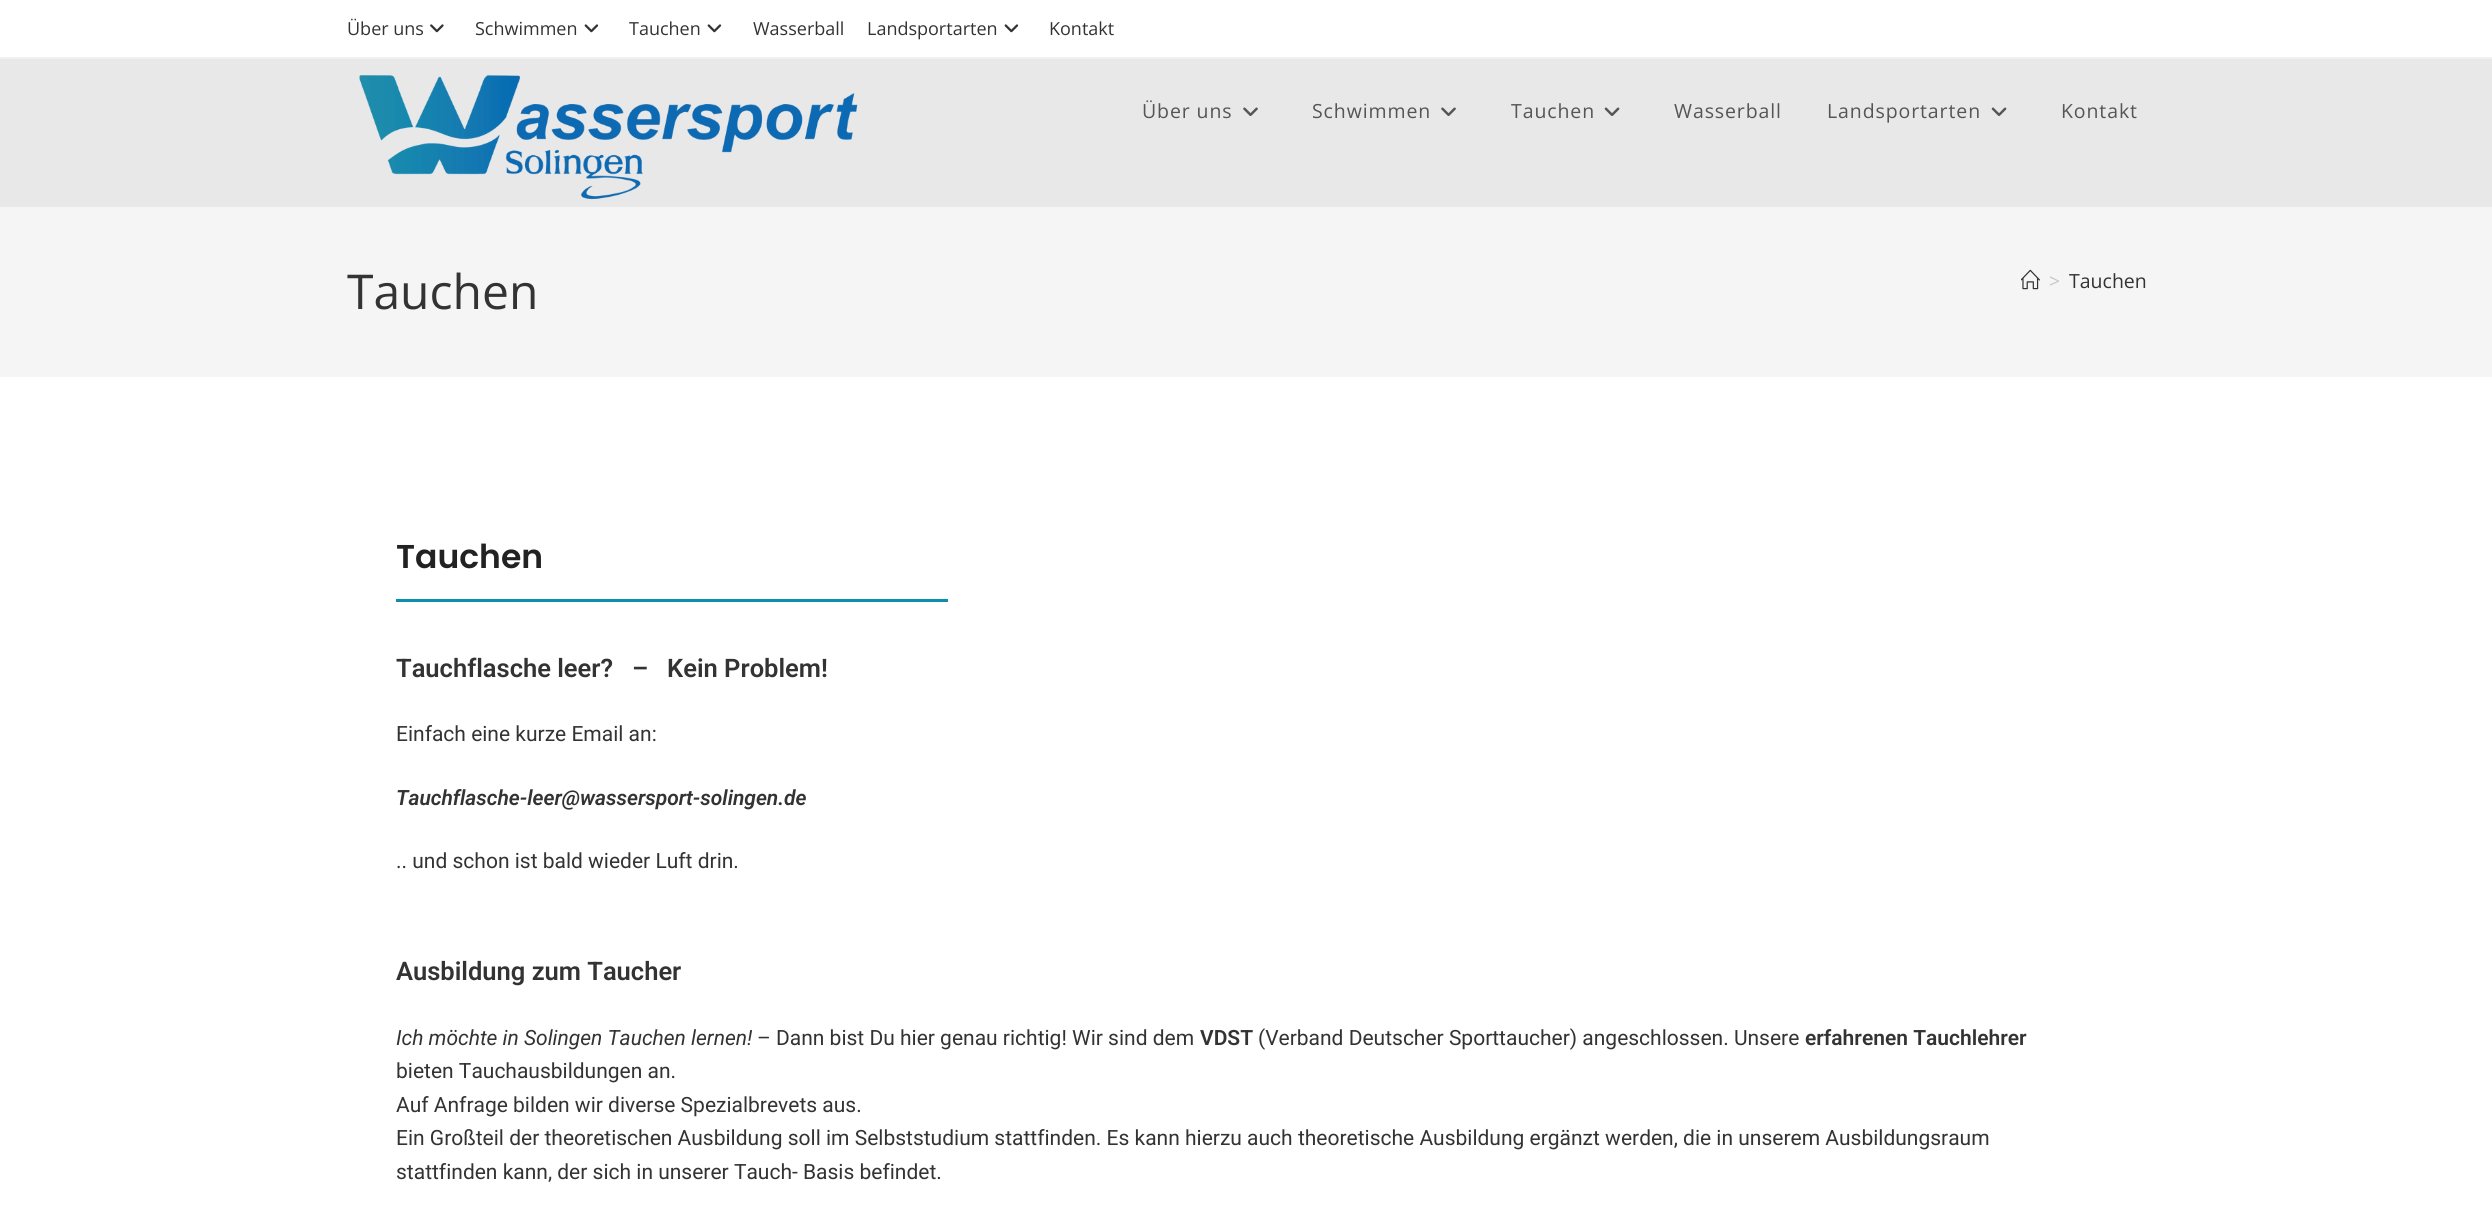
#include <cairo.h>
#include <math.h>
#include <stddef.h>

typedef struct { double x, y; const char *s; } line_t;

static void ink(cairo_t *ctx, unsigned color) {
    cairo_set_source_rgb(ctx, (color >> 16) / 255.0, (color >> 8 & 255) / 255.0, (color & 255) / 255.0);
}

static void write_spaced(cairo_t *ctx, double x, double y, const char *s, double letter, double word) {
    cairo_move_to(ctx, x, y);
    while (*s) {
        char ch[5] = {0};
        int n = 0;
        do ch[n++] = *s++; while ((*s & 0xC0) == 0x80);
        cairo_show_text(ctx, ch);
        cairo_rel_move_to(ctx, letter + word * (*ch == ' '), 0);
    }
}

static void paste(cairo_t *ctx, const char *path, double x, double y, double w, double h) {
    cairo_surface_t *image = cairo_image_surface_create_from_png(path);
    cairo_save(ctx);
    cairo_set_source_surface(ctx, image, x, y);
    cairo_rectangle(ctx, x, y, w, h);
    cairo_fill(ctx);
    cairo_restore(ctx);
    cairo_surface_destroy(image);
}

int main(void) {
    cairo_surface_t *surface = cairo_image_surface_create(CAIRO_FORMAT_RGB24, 2492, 1231);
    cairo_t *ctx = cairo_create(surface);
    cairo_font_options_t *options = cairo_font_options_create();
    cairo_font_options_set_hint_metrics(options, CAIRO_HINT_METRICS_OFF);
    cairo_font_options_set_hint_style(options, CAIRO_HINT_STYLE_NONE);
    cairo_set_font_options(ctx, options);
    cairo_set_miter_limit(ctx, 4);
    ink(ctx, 0xFFFFFF);
    cairo_paint(ctx);
    ink(ctx, 0xF1F1F1);
    cairo_rectangle(ctx, 0, 57, 2492, 2);
    cairo_fill(ctx);
    cairo_select_font_face(ctx, "Open Sans", CAIRO_FONT_SLANT_NORMAL, CAIRO_FONT_WEIGHT_NORMAL);
    cairo_set_font_size(ctx, 18);
    ink(ctx, 0x333333);
    cairo_move_to(ctx, 347, 35);
    cairo_show_text(ctx, "Über uns");
    paste(ctx, "media/1.png", 430, 24, 14, 9);
    cairo_move_to(ctx, 475, 35);
    cairo_show_text(ctx, "Schwimmen");
    paste(ctx, "media/2.png", 584, 24, 15, 9);
    cairo_move_to(ctx, 629, 35);
    cairo_show_text(ctx, "Tauchen");
    paste(ctx, "media/2.png", 707, 24, 15, 9);
    cairo_move_to(ctx, 753, 35);
    cairo_show_text(ctx, "Wasserball");
    cairo_move_to(ctx, 867, 35);
    cairo_show_text(ctx, "Landsportarten");
    paste(ctx, "media/2.png", 1004, 24, 15, 9);
    cairo_move_to(ctx, 1049, 35);
    cairo_show_text(ctx, "Kontakt");
    ink(ctx, 0xE8E8E8);
    cairo_rectangle(ctx, 0, 59, 2492, 148);
    cairo_fill(ctx);
    paste(ctx, "media/3.png", 359, 75, 499, 125);
    cairo_set_font_size(ctx, 19.5);
    ink(ctx, 0x555555);
    write_spaced(ctx, 1142, 118, "Über uns", 0.9, 0);
    paste(ctx, "media/4.png", 1243, 107, 15, 9);
    write_spaced(ctx, 1312, 118, "Schwimmen", 0.9, 0);
    paste(ctx, "media/4.png", 1441, 107, 15, 9);
    write_spaced(ctx, 1511, 118, "Tauchen", 0.9, 0);
    paste(ctx, "media/5.png", 1604, 107, 16, 9);
    write_spaced(ctx, 1674, 118, "Wasserball", 0.9, 0);
    write_spaced(ctx, 1827, 118, "Landsportarten", 0.9, 0);
    paste(ctx, "media/5.png", 1991, 107, 16, 9);
    write_spaced(ctx, 2061, 118, "Kontakt", 0.9, 0);
    ink(ctx, 0xF5F5F5);
    cairo_rectangle(ctx, 0, 207, 2492, 170);
    cairo_fill(ctx);
    cairo_set_font_size(ctx, 48);
    ink(ctx, 0x333333);
    cairo_move_to(ctx, 347, 309);
    cairo_show_text(ctx, "Tauchen");
    paste(ctx, "media/6.png", 2021, 269, 19, 21);
    cairo_set_font_size(ctx, 19.5);
    ink(ctx, 0xC6C6C6);
    cairo_move_to(ctx, 2049, 288);
    cairo_show_text(ctx, ">");
    ink(ctx, 0x333333);
    cairo_move_to(ctx, 2069, 288);
    cairo_show_text(ctx, "Tauchen");
    cairo_select_font_face(ctx, "Poppins SemiBold", CAIRO_FONT_SLANT_NORMAL, CAIRO_FONT_WEIGHT_NORMAL);
    cairo_set_font_size(ctx, 33);
    ink(ctx, 0x222222);
    cairo_move_to(ctx, 396, 568);
    cairo_show_text(ctx, "Tauchen");
    ink(ctx, 0x0C8FAE);
    cairo_rectangle(ctx, 396, 599, 552, 3);
    cairo_fill(ctx);
    cairo_select_font_face(ctx, "Roboto SemiBold", CAIRO_FONT_SLANT_NORMAL, CAIRO_FONT_WEIGHT_NORMAL);
    cairo_set_font_size(ctx, 25.5);
    ink(ctx, 0x333333);
    cairo_move_to(ctx, 396, 677);
    cairo_show_text(ctx, "Tauchflasche leer?   –");
    cairo_move_to(ctx, 667, 677);
    cairo_show_text(ctx, "Kein Problem!");
    cairo_select_font_face(ctx, "Roboto", CAIRO_FONT_SLANT_NORMAL, CAIRO_FONT_WEIGHT_NORMAL);
    cairo_set_font_size(ctx, 21);
    cairo_move_to(ctx, 396, 741);
    cairo_show_text(ctx, "Einfach eine kurze Email an:");
    cairo_select_font_face(ctx, "Roboto SemiBold", CAIRO_FONT_SLANT_ITALIC, CAIRO_FONT_WEIGHT_NORMAL);
    cairo_move_to(ctx, 396, 805);
    cairo_show_text(ctx, "Tauchflasche-leer@wassersport-solingen.de");
    cairo_select_font_face(ctx, "Roboto", CAIRO_FONT_SLANT_NORMAL, CAIRO_FONT_WEIGHT_NORMAL);
    cairo_move_to(ctx, 396, 868);
    cairo_show_text(ctx, ".. und schon ist bald wieder Luft drin.");
    cairo_select_font_face(ctx, "Roboto SemiBold", CAIRO_FONT_SLANT_NORMAL, CAIRO_FONT_WEIGHT_NORMAL);
    cairo_set_font_size(ctx, 25.5);
    cairo_move_to(ctx, 396, 980);
    cairo_show_text(ctx, "Ausbildung zum Taucher");
    cairo_select_font_face(ctx, "Roboto", CAIRO_FONT_SLANT_ITALIC, CAIRO_FONT_WEIGHT_NORMAL);
    cairo_set_font_size(ctx, 21);
    cairo_move_to(ctx, 396, 1045);
    cairo_show_text(ctx, "Ich möchte in Solingen Tauchen lernen!");
    cairo_select_font_face(ctx, "Roboto", CAIRO_FONT_SLANT_NORMAL, CAIRO_FONT_WEIGHT_NORMAL);
    cairo_move_to(ctx, 757, 1045);
    cairo_show_text(ctx, "– Dann bist Du hier genau richtig! Wir sind dem");
    cairo_select_font_face(ctx, "Roboto SemiBold", CAIRO_FONT_SLANT_NORMAL, CAIRO_FONT_WEIGHT_NORMAL);
    cairo_move_to(ctx, 1200, 1045);
    cairo_show_text(ctx, "VDST");
    cairo_select_font_face(ctx, "Roboto", CAIRO_FONT_SLANT_NORMAL, CAIRO_FONT_WEIGHT_NORMAL);
    cairo_move_to(ctx, 1258, 1045);
    cairo_show_text(ctx, "(Verband Deutscher Sporttaucher) angeschlossen. Unsere");
    cairo_select_font_face(ctx, "Roboto SemiBold", CAIRO_FONT_SLANT_NORMAL, CAIRO_FONT_WEIGHT_NORMAL);
    cairo_move_to(ctx, 1805, 1045);
    cairo_show_text(ctx, "erfahrenen Tauchlehrer");
    cairo_select_font_face(ctx, "Roboto", CAIRO_FONT_SLANT_NORMAL, CAIRO_FONT_WEIGHT_NORMAL);
    {
        static const line_t items[] = {
            {396, 1078, "bieten Tauchausbildungen an."},
            {396, 1112, "Auf Anfrage bilden wir diverse Spezialbrevets aus."},
            {396, 1145, "Ein Großteil der theoretischen Ausbildung soll im Selbststudium stattfinden. Es kann hierzu auch theoretische Ausbildung ergänzt werden, die in unserem Ausbildungsraum"},
            {396, 1179, "stattfinden kann, der sich in unserer Tauch- Basis befindet."},
        };
        for (size_t i = 0; i < sizeof items / sizeof *items; i++) {
            cairo_move_to(ctx, items[i].x, items[i].y);
            cairo_show_text(ctx, items[i].s);
        }
    }
    cairo_surface_write_to_png(surface, "image.png");
    cairo_font_options_destroy(options);
    cairo_destroy(ctx);
    cairo_surface_destroy(surface);
    return 0;
}
